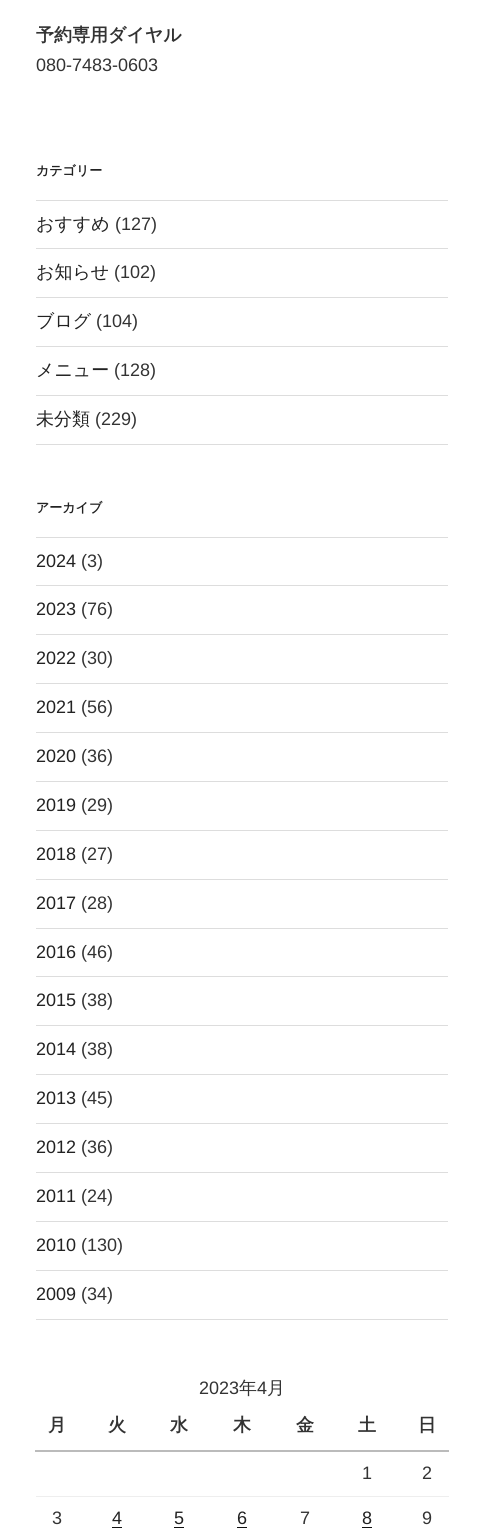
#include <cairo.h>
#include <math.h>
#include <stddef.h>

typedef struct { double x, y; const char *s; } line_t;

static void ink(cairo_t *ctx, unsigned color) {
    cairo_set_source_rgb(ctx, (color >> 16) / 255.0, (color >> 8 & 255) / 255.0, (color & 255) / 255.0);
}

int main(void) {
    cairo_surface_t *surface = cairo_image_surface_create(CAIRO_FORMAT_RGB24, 484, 1538);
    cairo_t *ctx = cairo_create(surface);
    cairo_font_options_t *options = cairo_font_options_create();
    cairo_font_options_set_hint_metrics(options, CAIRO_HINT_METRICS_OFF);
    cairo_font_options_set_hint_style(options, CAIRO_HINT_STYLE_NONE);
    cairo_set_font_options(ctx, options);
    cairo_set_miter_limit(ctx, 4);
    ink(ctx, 0xFFFFFF);
    cairo_paint(ctx);
    cairo_select_font_face(ctx, "WenQuanYi Zen Hei", CAIRO_FONT_SLANT_NORMAL, CAIRO_FONT_WEIGHT_BOLD);
    cairo_set_font_size(ctx, 18);
    ink(ctx, 0x333333);
    cairo_move_to(ctx, 36, 41);
    cairo_show_text(ctx, "予約専用ダイヤル");
    cairo_select_font_face(ctx, "Liberation Sans", CAIRO_FONT_SLANT_NORMAL, CAIRO_FONT_WEIGHT_NORMAL);
    cairo_move_to(ctx, 36, 71);
    cairo_show_text(ctx, "080-7483-0603");
    cairo_select_font_face(ctx, "WenQuanYi Zen Hei", CAIRO_FONT_SLANT_NORMAL, CAIRO_FONT_WEIGHT_BOLD);
    cairo_set_font_size(ctx, 13);
    ink(ctx, 0x222222);
    cairo_move_to(ctx, 36, 175);
    cairo_show_text(ctx, "カテゴリー");
    ink(ctx, 0xDDDDDD);
    cairo_rectangle(ctx, 36, 200, 412, 1);
    cairo_fill(ctx);
    cairo_rectangle(ctx, 36, 248, 412, 1);
    cairo_fill(ctx);
    cairo_select_font_face(ctx, "WenQuanYi Zen Hei Medium", CAIRO_FONT_SLANT_NORMAL, CAIRO_FONT_WEIGHT_NORMAL);
    cairo_set_font_size(ctx, 18);
    ink(ctx, 0x222222);
    cairo_move_to(ctx, 36, 230);
    cairo_show_text(ctx, "おすすめ");
    cairo_select_font_face(ctx, "Liberation Sans", CAIRO_FONT_SLANT_NORMAL, CAIRO_FONT_WEIGHT_NORMAL);
    ink(ctx, 0x333333);
    cairo_move_to(ctx, 115, 230);
    cairo_show_text(ctx, "(127)");
    ink(ctx, 0xDDDDDD);
    cairo_rectangle(ctx, 36, 297, 412, 1);
    cairo_fill(ctx);
    cairo_select_font_face(ctx, "WenQuanYi Zen Hei Medium", CAIRO_FONT_SLANT_NORMAL, CAIRO_FONT_WEIGHT_NORMAL);
    ink(ctx, 0x222222);
    cairo_move_to(ctx, 36, 278);
    cairo_show_text(ctx, "お知らせ");
    cairo_select_font_face(ctx, "Liberation Sans", CAIRO_FONT_SLANT_NORMAL, CAIRO_FONT_WEIGHT_NORMAL);
    ink(ctx, 0x333333);
    cairo_move_to(ctx, 114, 278);
    cairo_show_text(ctx, "(102)");
    ink(ctx, 0xDDDDDD);
    cairo_rectangle(ctx, 36, 346, 412, 1);
    cairo_fill(ctx);
    cairo_select_font_face(ctx, "WenQuanYi Zen Hei Medium", CAIRO_FONT_SLANT_NORMAL, CAIRO_FONT_WEIGHT_NORMAL);
    ink(ctx, 0x222222);
    cairo_move_to(ctx, 36, 327);
    cairo_show_text(ctx, "ブログ");
    cairo_select_font_face(ctx, "Liberation Sans", CAIRO_FONT_SLANT_NORMAL, CAIRO_FONT_WEIGHT_NORMAL);
    ink(ctx, 0x333333);
    cairo_move_to(ctx, 96, 327);
    cairo_show_text(ctx, "(104)");
    ink(ctx, 0xDDDDDD);
    cairo_rectangle(ctx, 36, 395, 412, 1);
    cairo_fill(ctx);
    cairo_select_font_face(ctx, "WenQuanYi Zen Hei Medium", CAIRO_FONT_SLANT_NORMAL, CAIRO_FONT_WEIGHT_NORMAL);
    ink(ctx, 0x222222);
    cairo_move_to(ctx, 36, 376);
    cairo_show_text(ctx, "メニュー");
    cairo_select_font_face(ctx, "Liberation Sans", CAIRO_FONT_SLANT_NORMAL, CAIRO_FONT_WEIGHT_NORMAL);
    ink(ctx, 0x333333);
    cairo_move_to(ctx, 114, 376);
    cairo_show_text(ctx, "(128)");
    ink(ctx, 0xDDDDDD);
    cairo_rectangle(ctx, 36, 444, 412, 1);
    cairo_fill(ctx);
    cairo_select_font_face(ctx, "WenQuanYi Zen Hei Medium", CAIRO_FONT_SLANT_NORMAL, CAIRO_FONT_WEIGHT_NORMAL);
    ink(ctx, 0x222222);
    cairo_move_to(ctx, 36, 425);
    cairo_show_text(ctx, "未分類");
    cairo_select_font_face(ctx, "Liberation Sans", CAIRO_FONT_SLANT_NORMAL, CAIRO_FONT_WEIGHT_NORMAL);
    ink(ctx, 0x333333);
    cairo_move_to(ctx, 95, 425);
    cairo_show_text(ctx, "(229)");
    cairo_select_font_face(ctx, "WenQuanYi Zen Hei", CAIRO_FONT_SLANT_NORMAL, CAIRO_FONT_WEIGHT_BOLD);
    cairo_set_font_size(ctx, 13);
    ink(ctx, 0x222222);
    cairo_move_to(ctx, 36, 512);
    cairo_show_text(ctx, "アーカイブ");
    ink(ctx, 0xDDDDDD);
    cairo_rectangle(ctx, 36, 537, 412, 1);
    cairo_fill(ctx);
    cairo_rectangle(ctx, 36, 585, 412, 1);
    cairo_fill(ctx);
    cairo_select_font_face(ctx, "Liberation Sans", CAIRO_FONT_SLANT_NORMAL, CAIRO_FONT_WEIGHT_NORMAL);
    cairo_set_font_size(ctx, 18);
    ink(ctx, 0x222222);
    cairo_move_to(ctx, 36, 567);
    cairo_show_text(ctx, "2024");
    ink(ctx, 0x333333);
    cairo_move_to(ctx, 81, 567);
    cairo_show_text(ctx, "(3)");
    ink(ctx, 0xDDDDDD);
    cairo_rectangle(ctx, 36, 634, 412, 1);
    cairo_fill(ctx);
    ink(ctx, 0x222222);
    cairo_move_to(ctx, 36, 615);
    cairo_show_text(ctx, "2023");
    ink(ctx, 0x333333);
    cairo_move_to(ctx, 81, 615);
    cairo_show_text(ctx, "(76)");
    ink(ctx, 0xDDDDDD);
    cairo_rectangle(ctx, 36, 683, 412, 1);
    cairo_fill(ctx);
    ink(ctx, 0x222222);
    cairo_move_to(ctx, 36, 664);
    cairo_show_text(ctx, "2022");
    ink(ctx, 0x333333);
    cairo_move_to(ctx, 81, 664);
    cairo_show_text(ctx, "(30)");
    ink(ctx, 0xDDDDDD);
    cairo_rectangle(ctx, 36, 732, 412, 1);
    cairo_fill(ctx);
    ink(ctx, 0x222222);
    cairo_move_to(ctx, 36, 713);
    cairo_show_text(ctx, "2021");
    ink(ctx, 0x333333);
    cairo_move_to(ctx, 81, 713);
    cairo_show_text(ctx, "(56)");
    ink(ctx, 0xDDDDDD);
    cairo_rectangle(ctx, 36, 781, 412, 1);
    cairo_fill(ctx);
    ink(ctx, 0x222222);
    cairo_move_to(ctx, 36, 762);
    cairo_show_text(ctx, "2020");
    ink(ctx, 0x333333);
    cairo_move_to(ctx, 81, 762);
    cairo_show_text(ctx, "(36)");
    ink(ctx, 0xDDDDDD);
    cairo_rectangle(ctx, 36, 830, 412, 1);
    cairo_fill(ctx);
    ink(ctx, 0x222222);
    cairo_move_to(ctx, 36, 811);
    cairo_show_text(ctx, "2019");
    ink(ctx, 0x333333);
    cairo_move_to(ctx, 81, 811);
    cairo_show_text(ctx, "(29)");
    ink(ctx, 0xDDDDDD);
    cairo_rectangle(ctx, 36, 879, 412, 1);
    cairo_fill(ctx);
    ink(ctx, 0x222222);
    cairo_move_to(ctx, 36, 860);
    cairo_show_text(ctx, "2018");
    ink(ctx, 0x333333);
    cairo_move_to(ctx, 81, 860);
    cairo_show_text(ctx, "(27)");
    ink(ctx, 0xDDDDDD);
    cairo_rectangle(ctx, 36, 928, 412, 1);
    cairo_fill(ctx);
    ink(ctx, 0x222222);
    cairo_move_to(ctx, 36, 909);
    cairo_show_text(ctx, "2017");
    ink(ctx, 0x333333);
    cairo_move_to(ctx, 81, 909);
    cairo_show_text(ctx, "(28)");
    ink(ctx, 0xDDDDDD);
    cairo_rectangle(ctx, 36, 976, 412, 1);
    cairo_fill(ctx);
    ink(ctx, 0x222222);
    cairo_move_to(ctx, 36, 958);
    cairo_show_text(ctx, "2016");
    ink(ctx, 0x333333);
    cairo_move_to(ctx, 81, 958);
    cairo_show_text(ctx, "(46)");
    ink(ctx, 0xDDDDDD);
    cairo_rectangle(ctx, 36, 1025, 412, 1);
    cairo_fill(ctx);
    ink(ctx, 0x222222);
    cairo_move_to(ctx, 36, 1006);
    cairo_show_text(ctx, "2015");
    ink(ctx, 0x333333);
    cairo_move_to(ctx, 81, 1006);
    cairo_show_text(ctx, "(38)");
    ink(ctx, 0xDDDDDD);
    cairo_rectangle(ctx, 36, 1074, 412, 1);
    cairo_fill(ctx);
    ink(ctx, 0x222222);
    cairo_move_to(ctx, 36, 1055);
    cairo_show_text(ctx, "2014");
    ink(ctx, 0x333333);
    cairo_move_to(ctx, 81, 1055);
    cairo_show_text(ctx, "(38)");
    ink(ctx, 0xDDDDDD);
    cairo_rectangle(ctx, 36, 1123, 412, 1);
    cairo_fill(ctx);
    ink(ctx, 0x222222);
    cairo_move_to(ctx, 36, 1104);
    cairo_show_text(ctx, "2013");
    ink(ctx, 0x333333);
    cairo_move_to(ctx, 81, 1104);
    cairo_show_text(ctx, "(45)");
    ink(ctx, 0xDDDDDD);
    cairo_rectangle(ctx, 36, 1172, 412, 1);
    cairo_fill(ctx);
    ink(ctx, 0x222222);
    cairo_move_to(ctx, 36, 1153);
    cairo_show_text(ctx, "2012");
    ink(ctx, 0x333333);
    cairo_move_to(ctx, 81, 1153);
    cairo_show_text(ctx, "(36)");
    ink(ctx, 0xDDDDDD);
    cairo_rectangle(ctx, 36, 1221, 412, 1);
    cairo_fill(ctx);
    ink(ctx, 0x222222);
    cairo_move_to(ctx, 36, 1202);
    cairo_show_text(ctx, "2011");
    ink(ctx, 0x333333);
    cairo_move_to(ctx, 81, 1202);
    cairo_show_text(ctx, "(24)");
    ink(ctx, 0xDDDDDD);
    cairo_rectangle(ctx, 36, 1270, 412, 1);
    cairo_fill(ctx);
    ink(ctx, 0x222222);
    cairo_move_to(ctx, 36, 1251);
    cairo_show_text(ctx, "2010");
    ink(ctx, 0x333333);
    cairo_move_to(ctx, 81, 1251);
    cairo_show_text(ctx, "(130)");
    ink(ctx, 0xDDDDDD);
    cairo_rectangle(ctx, 36, 1319, 412, 1);
    cairo_fill(ctx);
    ink(ctx, 0x222222);
    cairo_move_to(ctx, 36, 1300);
    cairo_show_text(ctx, "2009");
    ink(ctx, 0x333333);
    cairo_move_to(ctx, 81, 1300);
    cairo_show_text(ctx, "(34)");
    cairo_move_to(ctx, 199, 1394);
    cairo_show_text(ctx, "2023");
    cairo_select_font_face(ctx, "WenQuanYi Zen Hei Medium", CAIRO_FONT_SLANT_NORMAL, CAIRO_FONT_WEIGHT_NORMAL);
    cairo_move_to(ctx, 239, 1394);
    cairo_show_text(ctx, "年");
    cairo_select_font_face(ctx, "Liberation Sans", CAIRO_FONT_SLANT_NORMAL, CAIRO_FONT_WEIGHT_NORMAL);
    cairo_move_to(ctx, 257, 1394);
    cairo_show_text(ctx, "4");
    cairo_select_font_face(ctx, "WenQuanYi Zen Hei Medium", CAIRO_FONT_SLANT_NORMAL, CAIRO_FONT_WEIGHT_NORMAL);
    cairo_move_to(ctx, 267, 1394);
    cairo_show_text(ctx, "月");
    cairo_select_font_face(ctx, "WenQuanYi Zen Hei", CAIRO_FONT_SLANT_NORMAL, CAIRO_FONT_WEIGHT_BOLD);
    {
        static const line_t items[] = {
            {48, 1431, "月"},
            {108, 1431, "火"},
            {170, 1431, "水"},
            {233, 1431, "木"},
            {296, 1431, "金"},
            {358, 1431, "土"},
        };
        for (size_t i = 0; i < sizeof items / sizeof *items; i++) {
            cairo_move_to(ctx, items[i].x, items[i].y);
            cairo_show_text(ctx, items[i].s);
        }
    }
    ink(ctx, 0xBBBBBB);
    cairo_rectangle(ctx, 35, 1450, 414, 2);
    cairo_fill(ctx);
    ink(ctx, 0x333333);
    cairo_move_to(ctx, 418, 1431);
    cairo_show_text(ctx, "日");
    ink(ctx, 0xEEEEEE);
    cairo_rectangle(ctx, 36, 1496, 413, 1);
    cairo_fill(ctx);
    cairo_select_font_face(ctx, "Liberation Sans", CAIRO_FONT_SLANT_NORMAL, CAIRO_FONT_WEIGHT_NORMAL);
    ink(ctx, 0x333333);
    {
        static const line_t items[] = {
            {362, 1479, "1"},
            {422, 1479, "2"},
            {52, 1524, "3"},
        };
        for (size_t i = 0; i < sizeof items / sizeof *items; i++) {
            cairo_move_to(ctx, items[i].x, items[i].y);
            cairo_show_text(ctx, items[i].s);
        }
    }
    ink(ctx, 0x222222);
    cairo_move_to(ctx, 112, 1524);
    cairo_show_text(ctx, "4");
    ink(ctx, 0x0F0F0F);
    cairo_rectangle(ctx, 112, 1527, 10, 1);
    cairo_fill(ctx);
    ink(ctx, 0x222222);
    cairo_move_to(ctx, 174, 1524);
    cairo_show_text(ctx, "5");
    ink(ctx, 0x0F0F0F);
    cairo_rectangle(ctx, 174, 1527, 10, 1);
    cairo_fill(ctx);
    ink(ctx, 0x222222);
    cairo_move_to(ctx, 237, 1524);
    cairo_show_text(ctx, "6");
    ink(ctx, 0x0F0F0F);
    cairo_rectangle(ctx, 237, 1527, 10, 1);
    cairo_fill(ctx);
    ink(ctx, 0x333333);
    cairo_move_to(ctx, 300, 1524);
    cairo_show_text(ctx, "7");
    ink(ctx, 0x222222);
    cairo_move_to(ctx, 362, 1524);
    cairo_show_text(ctx, "8");
    ink(ctx, 0x0F0F0F);
    cairo_rectangle(ctx, 362, 1527, 10, 1);
    cairo_fill(ctx);
    ink(ctx, 0x333333);
    cairo_move_to(ctx, 422, 1524);
    cairo_show_text(ctx, "9");
    cairo_surface_write_to_png(surface, "image.png");
    cairo_font_options_destroy(options);
    cairo_destroy(ctx);
    cairo_surface_destroy(surface);
    return 0;
}
